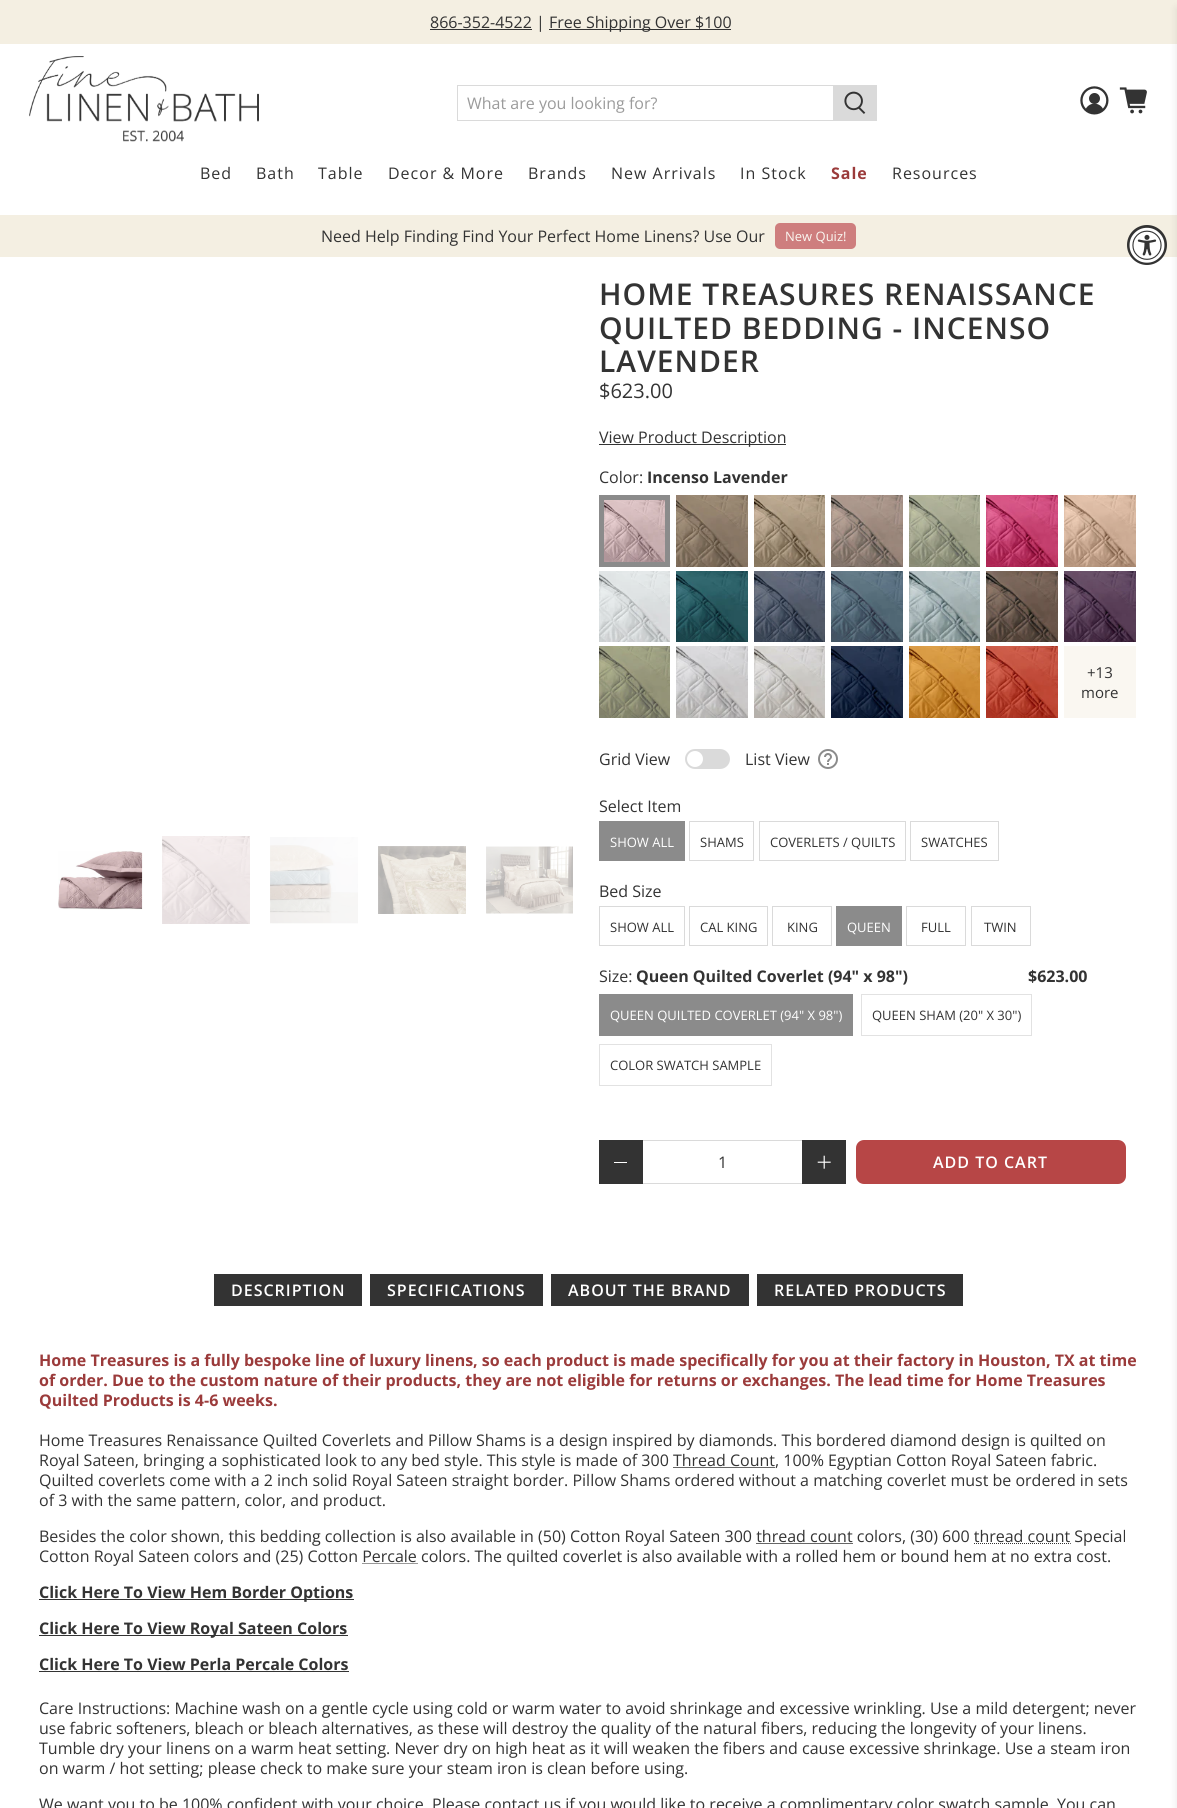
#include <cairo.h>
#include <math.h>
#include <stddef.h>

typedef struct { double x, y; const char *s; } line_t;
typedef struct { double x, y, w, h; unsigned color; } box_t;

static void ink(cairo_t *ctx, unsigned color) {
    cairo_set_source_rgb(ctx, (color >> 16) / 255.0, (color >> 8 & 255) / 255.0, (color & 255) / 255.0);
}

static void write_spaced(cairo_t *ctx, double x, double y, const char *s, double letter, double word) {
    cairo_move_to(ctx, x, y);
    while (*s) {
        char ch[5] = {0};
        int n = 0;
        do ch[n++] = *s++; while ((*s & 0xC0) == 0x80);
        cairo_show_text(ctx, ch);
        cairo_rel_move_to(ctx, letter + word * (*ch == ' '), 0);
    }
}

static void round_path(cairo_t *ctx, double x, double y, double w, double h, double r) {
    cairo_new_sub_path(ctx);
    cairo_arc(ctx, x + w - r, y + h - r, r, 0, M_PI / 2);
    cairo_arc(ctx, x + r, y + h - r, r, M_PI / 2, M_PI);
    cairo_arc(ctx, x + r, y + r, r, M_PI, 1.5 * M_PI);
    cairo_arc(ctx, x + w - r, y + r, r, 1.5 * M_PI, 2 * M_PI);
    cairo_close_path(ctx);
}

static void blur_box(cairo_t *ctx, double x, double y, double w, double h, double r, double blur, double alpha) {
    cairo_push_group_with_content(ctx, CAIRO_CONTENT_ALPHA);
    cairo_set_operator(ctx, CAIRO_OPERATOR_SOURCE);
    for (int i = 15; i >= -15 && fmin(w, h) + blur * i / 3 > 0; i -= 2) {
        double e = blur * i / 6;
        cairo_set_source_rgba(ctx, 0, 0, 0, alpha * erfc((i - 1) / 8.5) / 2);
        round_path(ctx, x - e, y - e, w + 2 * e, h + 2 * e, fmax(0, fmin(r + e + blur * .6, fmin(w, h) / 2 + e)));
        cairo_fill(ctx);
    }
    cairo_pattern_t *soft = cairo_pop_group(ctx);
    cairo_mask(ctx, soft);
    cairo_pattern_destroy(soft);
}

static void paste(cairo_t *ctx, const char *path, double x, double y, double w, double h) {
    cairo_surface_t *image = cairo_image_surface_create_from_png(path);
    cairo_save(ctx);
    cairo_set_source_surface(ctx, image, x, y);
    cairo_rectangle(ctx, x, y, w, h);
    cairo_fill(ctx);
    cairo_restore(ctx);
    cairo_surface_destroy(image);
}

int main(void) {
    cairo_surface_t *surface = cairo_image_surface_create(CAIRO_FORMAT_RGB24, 1177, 1808);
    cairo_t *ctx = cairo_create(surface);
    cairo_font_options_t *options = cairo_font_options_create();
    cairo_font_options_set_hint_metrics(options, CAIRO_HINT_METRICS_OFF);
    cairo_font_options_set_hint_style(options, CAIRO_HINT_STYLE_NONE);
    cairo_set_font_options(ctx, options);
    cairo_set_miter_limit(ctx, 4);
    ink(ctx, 0xFFFFFF);
    cairo_paint(ctx);
    ink(ctx, 0xF4EFE2);
    cairo_rectangle(ctx, 0, 0, 1177, 44);
    cairo_fill(ctx);
    ink(ctx, 0x333333);
    cairo_rectangle(ctx, 430, 29, 102, 1);
    cairo_fill(ctx);
    cairo_select_font_face(ctx, "Open Sans", CAIRO_FONT_SLANT_NORMAL, CAIRO_FONT_WEIGHT_NORMAL);
    cairo_set_font_size(ctx, 16);
    cairo_move_to(ctx, 430, 28);
    cairo_show_text(ctx, "866-352-4522 |");
    cairo_rectangle(ctx, 549, 29, 182, 1);
    cairo_fill(ctx);
    cairo_move_to(ctx, 549, 28);
    cairo_show_text(ctx, "Free Shipping Over $100");
    ink(ctx, 0xF4EFE2);
    cairo_rectangle(ctx, 0, 215, 1177, 42);
    cairo_fill(ctx);
    ink(ctx, 0x0A0A0A);
    blur_box(ctx, 1177, 8, 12, 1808, 0, 4, 0.1);
    paste(ctx, "media/1.png", 29, 56, 230, 86);
    cairo_rectangle(ctx, 457.5, 85.5, 376, 35);
    ink(ctx, 0xDADADA);
    cairo_set_line_width(ctx, 1);
    cairo_stroke(ctx);
    ink(ctx, 0x9B9B9B);
    cairo_move_to(ctx, 467, 109);
    cairo_show_text(ctx, "What are you looking for?");
    ink(ctx, 0xDADADA);
    cairo_rectangle(ctx, 834, 85, 43, 36);
    cairo_fill(ctx);
    paste(ctx, "media/2.png", 844, 91, 22, 23);
    paste(ctx, "media/3.png", 1080, 86, 29, 29);
    paste(ctx, "media/4.png", 1119, 87, 28, 27);
    ink(ctx, 0x333333);
    {
        static const line_t items[] = {
            {200, 179, "Bed"},
            {256, 179, "Bath"},
            {318, 179, "Table"},
            {388, 179, "Decor & More"},
            {528, 179, "Brands"},
            {611, 179, "New Arrivals"},
            {740, 179, "In Stock"},
        };
        for (size_t i = 0; i < sizeof items / sizeof *items; i++) {
            write_spaced(ctx, items[i].x, items[i].y, items[i].s, 1, 0);
        }
    }
    cairo_select_font_face(ctx, "Open Sans", CAIRO_FONT_SLANT_NORMAL, CAIRO_FONT_WEIGHT_BOLD);
    ink(ctx, 0x9B3B3B);
    write_spaced(ctx, 831, 179, "Sale", 1, 0);
    cairo_select_font_face(ctx, "Open Sans", CAIRO_FONT_SLANT_NORMAL, CAIRO_FONT_WEIGHT_NORMAL);
    ink(ctx, 0x333333);
    write_spaced(ctx, 892, 179, "Resources", 1, 0);
    cairo_move_to(ctx, 321, 242);
    cairo_show_text(ctx, "Need Help Finding Find Your Perfect Home Linens? Use Our");
    ink(ctx, 0xCE7E7E);
    round_path(ctx, 775, 223, 81, 26, 5);
    cairo_fill(ctx);
    cairo_set_font_size(ctx, 13);
    ink(ctx, 0xFAF7F1);
    cairo_move_to(ctx, 785, 241);
    cairo_show_text(ctx, "New Quiz!");
    ink(ctx, 0x333333);
    cairo_new_path(ctx);
    cairo_arc(ctx, 1147, 245, 20, 0, 2 * M_PI);
    cairo_fill(ctx);
    paste(ctx, "media/5.png", 1129, 227, 36, 36);
    paste(ctx, "media/6.png", 58, 851, 85, 59);
    paste(ctx, "media/7.png", 162, 836, 88, 88);
    paste(ctx, "media/8.png", 270, 837, 88, 87);
    paste(ctx, "media/9.png", 378, 846, 88, 68);
    paste(ctx, "media/10.png", 486, 846, 87, 68);
    cairo_select_font_face(ctx, "Open Sans SemiBold", CAIRO_FONT_SLANT_NORMAL, CAIRO_FONT_WEIGHT_NORMAL);
    cairo_set_font_size(ctx, 30);
    {
        static const line_t items[] = {
            {599, 305, "HOME TREASURES RENAISSANCE"},
            {599, 339, "QUILTED BEDDING - INCENSO"},
            {599, 372, "LAVENDER"},
        };
        for (size_t i = 0; i < sizeof items / sizeof *items; i++) {
            write_spaced(ctx, items[i].x, items[i].y, items[i].s, 1, 0);
        }
    }
    cairo_select_font_face(ctx, "Open Sans", CAIRO_FONT_SLANT_NORMAL, CAIRO_FONT_WEIGHT_NORMAL);
    cairo_set_font_size(ctx, 20);
    cairo_move_to(ctx, 599, 398);
    cairo_show_text(ctx, "$623.00");
    cairo_rectangle(ctx, 599, 444, 187, 1);
    cairo_fill(ctx);
    cairo_set_font_size(ctx, 16);
    cairo_move_to(ctx, 599, 443);
    cairo_show_text(ctx, "View Product Description");
    cairo_move_to(ctx, 599, 483);
    cairo_show_text(ctx, "Color:");
    cairo_select_font_face(ctx, "Open Sans", CAIRO_FONT_SLANT_NORMAL, CAIRO_FONT_WEIGHT_BOLD);
    cairo_move_to(ctx, 647, 483);
    cairo_show_text(ctx, "Incenso Lavender");
    cairo_rectangle(ctx, 601.5, 497.5, 66, 67);
    ink(ctx, 0x8B8B8B);
    cairo_set_line_width(ctx, 5);
    cairo_stroke(ctx);
    paste(ctx, "media/11.png", 604, 500, 61, 62);
    paste(ctx, "media/12.png", 676, 495, 72, 72);
    paste(ctx, "media/13.png", 754, 495, 71, 72);
    paste(ctx, "media/14.png", 831, 495, 72, 72);
    paste(ctx, "media/15.png", 909, 495, 71, 72);
    paste(ctx, "media/16.png", 986, 495, 72, 72);
    paste(ctx, "media/17.png", 1064, 495, 72, 72);
    paste(ctx, "media/18.png", 599, 571, 71, 71);
    paste(ctx, "media/19.png", 676, 571, 72, 71);
    paste(ctx, "media/20.png", 754, 571, 71, 71);
    paste(ctx, "media/21.png", 831, 571, 72, 71);
    paste(ctx, "media/22.png", 909, 571, 71, 71);
    paste(ctx, "media/23.png", 986, 571, 72, 71);
    paste(ctx, "media/24.png", 1064, 571, 72, 71);
    paste(ctx, "media/25.png", 599, 646, 71, 72);
    paste(ctx, "media/26.png", 676, 646, 72, 72);
    paste(ctx, "media/27.png", 754, 646, 71, 72);
    paste(ctx, "media/28.png", 831, 646, 72, 72);
    paste(ctx, "media/29.png", 909, 646, 71, 72);
    paste(ctx, "media/30.png", 986, 646, 72, 72);
    ink(ctx, 0xFAF7F1);
    cairo_rectangle(ctx, 1064, 646, 72, 72);
    cairo_fill(ctx);
    cairo_select_font_face(ctx, "Open Sans", CAIRO_FONT_SLANT_NORMAL, CAIRO_FONT_WEIGHT_NORMAL);
    cairo_set_font_size(ctx, 15);
    ink(ctx, 0x333333);
    cairo_move_to(ctx, 1087, 678);
    cairo_show_text(ctx, "+13");
    cairo_move_to(ctx, 1081, 698);
    cairo_show_text(ctx, "more");
    cairo_set_font_size(ctx, 16);
    cairo_move_to(ctx, 599, 765);
    cairo_show_text(ctx, "Grid View");
    ink(ctx, 0xDADADA);
    round_path(ctx, 685, 749, 45, 20, 10);
    cairo_fill(ctx);
    ink(ctx, 0xFFFFFF);
    cairo_arc(ctx, 695, 759, 8, 0, 2 * M_PI);
    cairo_fill(ctx);
    ink(ctx, 0x333333);
    cairo_move_to(ctx, 745, 765);
    cairo_show_text(ctx, "List View");
    paste(ctx, "media/31.png", 818, 749, 20, 20);
    cairo_move_to(ctx, 599, 812);
    cairo_show_text(ctx, "Select Item");
    ink(ctx, 0x8B8B8B);
    cairo_rectangle(ctx, 599, 821, 86, 40);
    cairo_fill(ctx);
    cairo_set_font_size(ctx, 13);
    ink(ctx, 0xFFFFFF);
    cairo_move_to(ctx, 610, 847);
    cairo_show_text(ctx, "SHOW ALL");
    cairo_rectangle(ctx, 689.5, 821.5, 64, 39);
    ink(ctx, 0xDADADA);
    cairo_set_line_width(ctx, 1);
    cairo_stroke(ctx);
    ink(ctx, 0x333333);
    cairo_move_to(ctx, 700, 847);
    cairo_show_text(ctx, "SHAMS");
    cairo_rectangle(ctx, 759.5, 821.5, 146, 39);
    ink(ctx, 0xDADADA);
    cairo_stroke(ctx);
    ink(ctx, 0x333333);
    cairo_move_to(ctx, 770, 847);
    cairo_show_text(ctx, "COVERLETS / QUILTS");
    cairo_rectangle(ctx, 910.5, 821.5, 88, 39);
    ink(ctx, 0xDADADA);
    cairo_stroke(ctx);
    ink(ctx, 0x333333);
    cairo_move_to(ctx, 921, 847);
    cairo_show_text(ctx, "SWATCHES");
    cairo_set_font_size(ctx, 16);
    cairo_move_to(ctx, 599, 897);
    cairo_show_text(ctx, "Bed Size");
    cairo_rectangle(ctx, 599.5, 906.5, 85, 39);
    ink(ctx, 0xDADADA);
    cairo_stroke(ctx);
    cairo_set_font_size(ctx, 13);
    ink(ctx, 0x333333);
    cairo_move_to(ctx, 610, 932);
    cairo_show_text(ctx, "SHOW ALL");
    cairo_rectangle(ctx, 689.5, 906.5, 78, 39);
    ink(ctx, 0xDADADA);
    cairo_stroke(ctx);
    ink(ctx, 0x333333);
    cairo_move_to(ctx, 700, 932);
    cairo_show_text(ctx, "CAL KING");
    cairo_rectangle(ctx, 772.5, 906.5, 59, 39);
    ink(ctx, 0xDADADA);
    cairo_stroke(ctx);
    ink(ctx, 0x333333);
    cairo_move_to(ctx, 787, 932);
    cairo_show_text(ctx, "KING");
    ink(ctx, 0x8B8B8B);
    cairo_rectangle(ctx, 836, 906, 66, 40);
    cairo_fill(ctx);
    ink(ctx, 0xFFFFFF);
    cairo_move_to(ctx, 847, 932);
    cairo_show_text(ctx, "QUEEN");
    cairo_rectangle(ctx, 906.5, 906.5, 59, 39);
    ink(ctx, 0xDADADA);
    cairo_stroke(ctx);
    ink(ctx, 0x333333);
    cairo_move_to(ctx, 921, 932);
    cairo_show_text(ctx, "FULL");
    cairo_rectangle(ctx, 971.5, 906.5, 59, 39);
    ink(ctx, 0xDADADA);
    cairo_stroke(ctx);
    ink(ctx, 0x333333);
    cairo_move_to(ctx, 984, 932);
    cairo_show_text(ctx, "TWIN");
    cairo_set_font_size(ctx, 16);
    cairo_move_to(ctx, 599, 982);
    cairo_show_text(ctx, "Size:");
    cairo_select_font_face(ctx, "Open Sans", CAIRO_FONT_SLANT_NORMAL, CAIRO_FONT_WEIGHT_BOLD);
    cairo_move_to(ctx, 636, 982);
    cairo_show_text(ctx, "Queen Quilted Coverlet (94\" x 98\")");
    cairo_move_to(ctx, 1028, 982);
    cairo_show_text(ctx, "$623.00");
    ink(ctx, 0x8B8B8B);
    cairo_rectangle(ctx, 599, 994, 254, 42);
    cairo_fill(ctx);
    cairo_select_font_face(ctx, "Open Sans", CAIRO_FONT_SLANT_NORMAL, CAIRO_FONT_WEIGHT_NORMAL);
    cairo_set_font_size(ctx, 13);
    ink(ctx, 0xFFFFFF);
    cairo_move_to(ctx, 610, 1020);
    cairo_show_text(ctx, "QUEEN QUILTED COVERLET (94\" X 98\")");
    cairo_rectangle(ctx, 861.5, 994.5, 170, 41);
    ink(ctx, 0xE2E2E2);
    cairo_stroke(ctx);
    ink(ctx, 0x333333);
    cairo_move_to(ctx, 872, 1020);
    cairo_show_text(ctx, "QUEEN SHAM (20\" X 30\")");
    cairo_rectangle(ctx, 599.5, 1044.5, 172, 41);
    ink(ctx, 0xE2E2E2);
    cairo_stroke(ctx);
    ink(ctx, 0x333333);
    cairo_move_to(ctx, 610, 1070);
    cairo_show_text(ctx, "COLOR SWATCH SAMPLE");
    {
        static const box_t items[] = {
            {599, 1140, 44, 44, 0x333333},
            {614, 1162, 13, 1, 0xFFFFFF},
            {643, 1140, 159, 1, 0xDADADA},
            {643, 1183, 159, 1, 0xDADADA},
        };
        for (size_t i = 0; i < sizeof items / sizeof *items; i++) {
            ink(ctx, items[i].color);
            cairo_rectangle(ctx, items[i].x, items[i].y, items[i].w, items[i].h);
            cairo_fill(ctx);
        }
    }
    cairo_set_font_size(ctx, 16);
    ink(ctx, 0x333333);
    cairo_move_to(ctx, 718, 1168);
    cairo_show_text(ctx, "1");
    cairo_rectangle(ctx, 802, 1140, 44, 44);
    cairo_fill(ctx);
    paste(ctx, "media/32.png", 817, 1155, 14, 14);
    ink(ctx, 0xB74646);
    round_path(ctx, 856, 1140, 270, 44, 8);
    cairo_fill(ctx);
    cairo_select_font_face(ctx, "Open Sans SemiBold", CAIRO_FONT_SLANT_NORMAL, CAIRO_FONT_WEIGHT_NORMAL);
    ink(ctx, 0xFFFFFF);
    write_spaced(ctx, 933, 1168, "ADD TO CART", 1, 0);
    ink(ctx, 0x333333);
    cairo_rectangle(ctx, 214, 1274, 148, 32);
    cairo_fill(ctx);
    ink(ctx, 0xFFFFFF);
    write_spaced(ctx, 231, 1296, "DESCRIPTION", 1, 0);
    ink(ctx, 0x333333);
    cairo_rectangle(ctx, 370, 1274, 173, 32);
    cairo_fill(ctx);
    ink(ctx, 0xFFFFFF);
    write_spaced(ctx, 387, 1296, "SPECIFICATIONS", 1, 0);
    ink(ctx, 0x333333);
    cairo_rectangle(ctx, 551, 1274, 198, 32);
    cairo_fill(ctx);
    ink(ctx, 0xFFFFFF);
    write_spaced(ctx, 568, 1296, "ABOUT THE BRAND", 1, 0);
    ink(ctx, 0x333333);
    cairo_rectangle(ctx, 757, 1274, 206, 32);
    cairo_fill(ctx);
    ink(ctx, 0xFFFFFF);
    write_spaced(ctx, 774, 1296, "RELATED PRODUCTS", 1, 0);
    cairo_select_font_face(ctx, "Open Sans", CAIRO_FONT_SLANT_NORMAL, CAIRO_FONT_WEIGHT_BOLD);
    ink(ctx, 0x9B3B3B);
    {
        static const line_t items[] = {
            {39, 1366, "Home Treasures is a fully bespoke line of luxury linens, so each product is made specifically for you at their factory in Houston, TX at time"},
            {39, 1386, "of order. Due to the custom nature of their products, they are not eligible for returns or exchanges. The lead time for Home Treasures"},
            {39, 1406, "Quilted Products is 4-6 weeks."},
        };
        for (size_t i = 0; i < sizeof items / sizeof *items; i++) {
            cairo_move_to(ctx, items[i].x, items[i].y);
            cairo_show_text(ctx, items[i].s);
        }
    }
    cairo_select_font_face(ctx, "Open Sans", CAIRO_FONT_SLANT_NORMAL, CAIRO_FONT_WEIGHT_NORMAL);
    ink(ctx, 0x333333);
    cairo_move_to(ctx, 39, 1446);
    cairo_show_text(ctx, "Home Treasures Renaissance Quilted Coverlets and Pillow Shams is a design inspired by diamonds. This bordered diamond design is quilted on");
    cairo_move_to(ctx, 39, 1466);
    cairo_show_text(ctx, "Royal Sateen, bringing a sophisticated look to any bed style. This style is made of 300 Thread Count, 100% Egyptian Cotton Royal Sateen fabric.");
    cairo_new_path(ctx);
    cairo_move_to(ctx, 673.5, 1467.5);
    cairo_line_to(ctx, 775.5, 1467.5);
    cairo_set_dash(ctx, (double[]){1, 1}, 2, 0);
    cairo_stroke(ctx);
    cairo_new_path(ctx);
    cairo_move_to(ctx, 673.5, 1467.5);
    cairo_line_to(ctx, 775.5, 1467.5);
    cairo_stroke(ctx);
    {
        static const line_t items[] = {
            {39, 1486, "Quilted coverlets come with a 2 inch solid Royal Sateen straight border. Pillow Shams ordered without a matching coverlet must be ordered in sets"},
            {39, 1506, "of 3 with the same pattern, color, and product."},
            {39, 1542, "Besides the color shown, this bedding collection is also available in (50) Cotton Royal Sateen 300 thread count colors, (30) 600 thread count Special"},
        };
        for (size_t i = 0; i < sizeof items / sizeof *items; i++) {
            cairo_move_to(ctx, items[i].x, items[i].y);
            cairo_show_text(ctx, items[i].s);
        }
    }
    cairo_new_path(ctx);
    cairo_move_to(ctx, 756.5, 1543.5);
    cairo_line_to(ctx, 853, 1543.5);
    cairo_stroke(ctx);
    cairo_new_path(ctx);
    cairo_move_to(ctx, 756.5, 1543.5);
    cairo_line_to(ctx, 853, 1543.5);
    cairo_stroke(ctx);
    cairo_new_path(ctx);
    cairo_move_to(ctx, 974, 1543.5);
    cairo_line_to(ctx, 1070.5, 1543.5);
    cairo_stroke(ctx);
    cairo_new_path(ctx);
    cairo_move_to(ctx, 974, 1543.5);
    cairo_line_to(ctx, 1070.5, 1543.5);
    cairo_stroke(ctx);
    cairo_move_to(ctx, 39, 1562);
    cairo_show_text(ctx, "Cotton Royal Sateen colors and (25) Cotton Percale colors. The quilted coverlet is also available with a rolled hem or bound hem at no extra cost.");
    cairo_new_path(ctx);
    cairo_move_to(ctx, 362.5, 1563.5);
    cairo_line_to(ctx, 417.5, 1563.5);
    cairo_move_to(ctx, 362.5, 1563.5);
    cairo_line_to(ctx, 417.5, 1563.5);
    cairo_stroke(ctx);
    cairo_rectangle(ctx, 39, 1599, 315, 1);
    cairo_fill(ctx);
    cairo_select_font_face(ctx, "Open Sans", CAIRO_FONT_SLANT_NORMAL, CAIRO_FONT_WEIGHT_BOLD);
    cairo_move_to(ctx, 39, 1598);
    cairo_show_text(ctx, "Click Here To View Hem Border Options");
    cairo_rectangle(ctx, 39, 1635, 309, 1);
    cairo_fill(ctx);
    cairo_move_to(ctx, 39, 1634);
    cairo_show_text(ctx, "Click Here To View Royal Sateen Colors");
    cairo_move_to(ctx, 39, 1670);
    cairo_show_text(ctx, "Click Here To View Perla Percale Colors");
    cairo_rectangle(ctx, 39, 1671, 197, 1);
    cairo_fill(ctx);
    cairo_new_path(ctx);
    cairo_move_to(ctx, 235.5, 1671.5);
    cairo_line_to(ctx, 294.5, 1671.5);
    cairo_stroke(ctx);
    cairo_rectangle(ctx, 236, 1671, 113, 1);
    cairo_fill(ctx);
    cairo_select_font_face(ctx, "Open Sans", CAIRO_FONT_SLANT_NORMAL, CAIRO_FONT_WEIGHT_NORMAL);
    {
        static const line_t items[] = {
            {39, 1714, "Care Instructions: Machine wash on a gentle cycle using cold or warm water to avoid shrinkage and excessive wrinkling. Use a mild detergent; never"},
            {39, 1734, "use fabric softeners, bleach or bleach alternatives, as these will destroy the quality of the natural fibers, reducing the longevity of your linens."},
            {39, 1754, "Tumble dry your linens on a warm heat setting. Never dry on high heat as it will weaken the fibers and cause excessive shrinkage. Use a steam iron"},
            {39, 1774, "on warm / hot setting; please check to make sure your steam iron is clean before using."},
            {39, 1810, "We want you to be 100% confident with your choice. Please contact us if you would like to receive a complimentary color swatch sample. You can"},
        };
        for (size_t i = 0; i < sizeof items / sizeof *items; i++) {
            cairo_move_to(ctx, items[i].x, items[i].y);
            cairo_show_text(ctx, items[i].s);
        }
    }
    cairo_surface_write_to_png(surface, "image.png");
    cairo_font_options_destroy(options);
    cairo_destroy(ctx);
    cairo_surface_destroy(surface);
    return 0;
}
